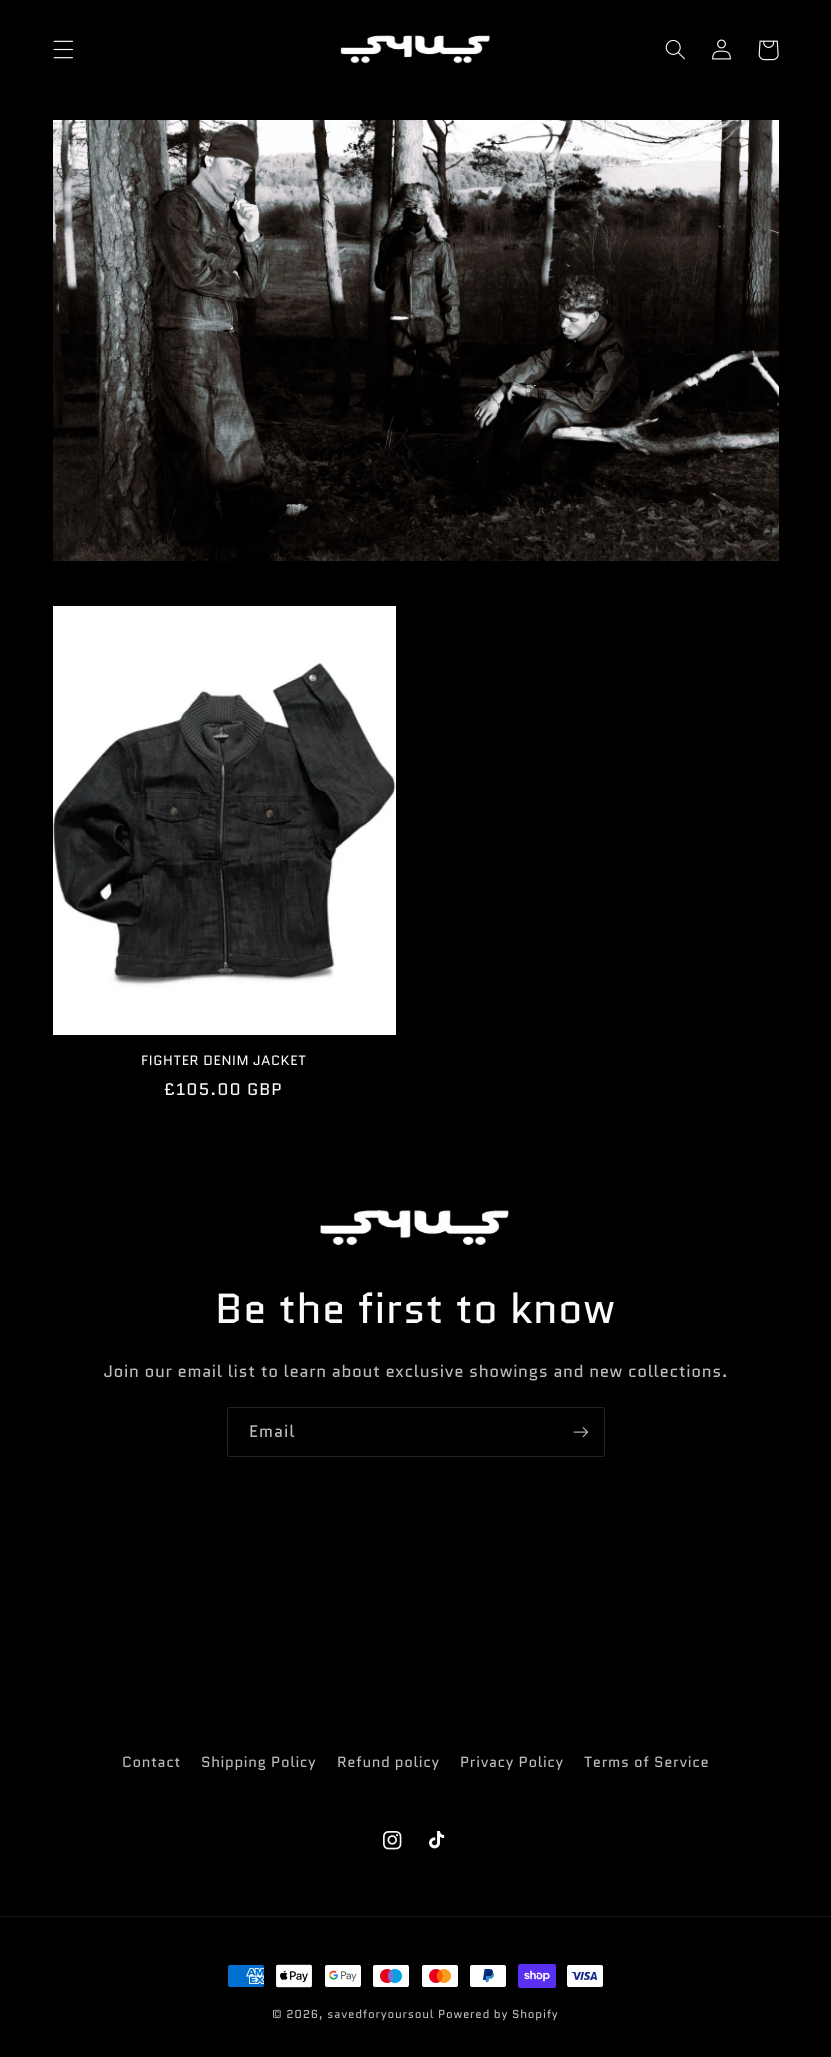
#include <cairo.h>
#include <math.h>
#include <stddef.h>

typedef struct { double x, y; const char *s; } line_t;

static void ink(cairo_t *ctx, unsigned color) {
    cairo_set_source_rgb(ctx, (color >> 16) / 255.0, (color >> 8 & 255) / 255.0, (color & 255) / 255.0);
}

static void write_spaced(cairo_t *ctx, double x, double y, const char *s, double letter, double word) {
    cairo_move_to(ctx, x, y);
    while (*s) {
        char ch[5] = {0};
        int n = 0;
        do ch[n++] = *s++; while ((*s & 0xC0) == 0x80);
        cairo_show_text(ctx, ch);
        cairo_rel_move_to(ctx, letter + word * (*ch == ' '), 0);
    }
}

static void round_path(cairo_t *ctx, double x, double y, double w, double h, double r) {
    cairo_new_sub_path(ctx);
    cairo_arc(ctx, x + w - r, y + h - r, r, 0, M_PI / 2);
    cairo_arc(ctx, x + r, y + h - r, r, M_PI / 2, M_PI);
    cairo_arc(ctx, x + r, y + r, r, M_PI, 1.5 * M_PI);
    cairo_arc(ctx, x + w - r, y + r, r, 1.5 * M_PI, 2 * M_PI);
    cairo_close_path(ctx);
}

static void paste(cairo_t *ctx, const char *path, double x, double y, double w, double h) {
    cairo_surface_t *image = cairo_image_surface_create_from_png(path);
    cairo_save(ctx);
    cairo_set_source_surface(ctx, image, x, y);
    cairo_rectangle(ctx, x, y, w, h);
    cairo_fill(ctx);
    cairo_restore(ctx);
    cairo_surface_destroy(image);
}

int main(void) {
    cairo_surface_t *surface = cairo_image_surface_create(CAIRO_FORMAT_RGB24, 831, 2057);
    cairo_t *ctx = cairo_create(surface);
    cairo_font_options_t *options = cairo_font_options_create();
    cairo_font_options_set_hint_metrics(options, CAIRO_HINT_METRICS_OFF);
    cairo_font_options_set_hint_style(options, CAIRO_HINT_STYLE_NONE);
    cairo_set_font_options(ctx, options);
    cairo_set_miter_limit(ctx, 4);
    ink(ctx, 0x000000);
    cairo_paint(ctx);
    paste(ctx, "media/1.png", 53, 40, 20, 19);
    paste(ctx, "media/2.png", 340, 35, 150, 29);
    paste(ctx, "media/3.png", 665, 39, 20, 21);
    paste(ctx, "media/4.png", 712, 39, 19, 21);
    paste(ctx, "media/5.png", 758, 40, 21, 21);
    paste(ctx, "media/6.png", 53, 120, 726, 441);
    paste(ctx, "media/7.png", 53, 606, 343, 429);
    cairo_select_font_face(ctx, "Quantico", CAIRO_FONT_SLANT_NORMAL, CAIRO_FONT_WEIGHT_NORMAL);
    cairo_set_font_size(ctx, 13.6);
    ink(ctx, 0xFAFAFA);
    write_spaced(ctx, 141, 1065, "FIGHTER DENIM JACKET", 0.63, 0);
    cairo_set_font_size(ctx, 16.8);
    write_spaced(ctx, 164, 1095, "£105.00 GBP", 1, 0);
    paste(ctx, "media/8.png", 320, 1210, 189, 35);
    cairo_set_font_size(ctx, 42);
    write_spaced(ctx, 215, 1323, "Be the first to know", 0.63, 0);
    cairo_set_font_size(ctx, 16.8);
    ink(ctx, 0xBCBCBC);
    write_spaced(ctx, 104, 1377, "Join our email list to learn about exclusive showings and new collections.", 0.63, 0);
    round_path(ctx, 227.5, 1407.5, 377, 49, 2.5);
    cairo_set_source_rgba(ctx, 0.98, 0.98, 0.98, 0.15);
    cairo_set_line_width(ctx, 1);
    cairo_stroke(ctx);
    ink(ctx, 0xBCBCBC);
    write_spaced(ctx, 249, 1437, "Email", 1, 0);
    paste(ctx, "media/9.png", 573, 1427, 15, 11);
    cairo_set_font_size(ctx, 14.75);
    {
        static const line_t items[] = {
            {122, 1767, "Contact"},
            {201, 1767, "Shipping Policy"},
            {337, 1767, "Refund policy"},
            {460, 1767, "Privacy Policy"},
            {584, 1767, "Terms of Service"},
        };
        for (size_t i = 0; i < sizeof items / sizeof *items; i++) {
            write_spaced(ctx, items[i].x, items[i].y, items[i].s, 0.63, 0);
        }
    }
    paste(ctx, "media/10.png", 383, 1831, 19, 19);
    paste(ctx, "media/11.png", 429, 1831, 16, 18);
    ink(ctx, 0x141414);
    cairo_rectangle(ctx, 0, 1916, 831, 1);
    cairo_fill(ctx);
    paste(ctx, "media/12.png", 228, 1965, 36, 22);
    paste(ctx, "media/13.png", 276, 1964, 36, 24);
    paste(ctx, "media/14.png", 325, 1965, 36, 22);
    paste(ctx, "media/15.png", 373, 1965, 36, 22);
    paste(ctx, "media/16.png", 422, 1965, 36, 22);
    paste(ctx, "media/17.png", 470, 1965, 36, 22);
    paste(ctx, "media/18.png", 518, 1964, 38, 24);
    paste(ctx, "media/19.png", 567, 1965, 36, 22);
    cairo_set_font_size(ctx, 11.55);
    ink(ctx, 0xBCBCBC);
    write_spaced(ctx, 272, 2018, "© 2026, savedforyoursoul Powered by Shopify", 0.75, 0);
    cairo_surface_write_to_png(surface, "image.png");
    cairo_font_options_destroy(options);
    cairo_destroy(ctx);
    cairo_surface_destroy(surface);
    return 0;
}
